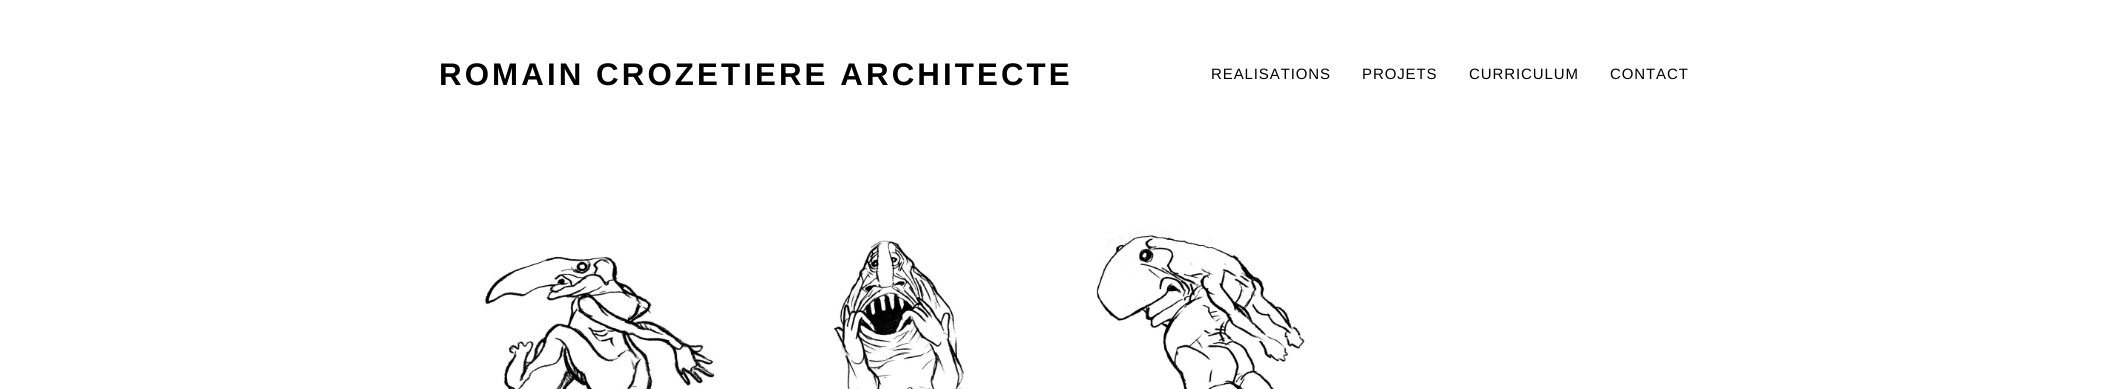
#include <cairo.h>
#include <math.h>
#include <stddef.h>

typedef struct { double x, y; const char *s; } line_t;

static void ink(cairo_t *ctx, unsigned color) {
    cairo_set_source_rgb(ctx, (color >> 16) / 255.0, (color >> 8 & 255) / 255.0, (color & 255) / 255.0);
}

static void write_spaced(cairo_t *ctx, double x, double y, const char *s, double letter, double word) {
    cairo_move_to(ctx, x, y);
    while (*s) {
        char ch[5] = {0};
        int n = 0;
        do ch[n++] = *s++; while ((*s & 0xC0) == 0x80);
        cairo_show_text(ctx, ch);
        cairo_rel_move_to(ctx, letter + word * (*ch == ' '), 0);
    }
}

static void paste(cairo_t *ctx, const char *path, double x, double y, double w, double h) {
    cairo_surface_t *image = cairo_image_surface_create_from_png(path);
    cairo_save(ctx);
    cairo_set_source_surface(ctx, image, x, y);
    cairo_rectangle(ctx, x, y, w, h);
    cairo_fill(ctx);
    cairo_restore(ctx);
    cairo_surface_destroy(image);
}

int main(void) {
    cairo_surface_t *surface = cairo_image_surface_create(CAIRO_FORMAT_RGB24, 2127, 389);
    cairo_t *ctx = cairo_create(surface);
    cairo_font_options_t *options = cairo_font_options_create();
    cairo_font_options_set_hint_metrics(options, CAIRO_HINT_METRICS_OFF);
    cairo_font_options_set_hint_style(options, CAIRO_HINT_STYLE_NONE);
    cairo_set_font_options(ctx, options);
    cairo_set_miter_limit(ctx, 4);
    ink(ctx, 0xFFFFFF);
    cairo_paint(ctx);
    cairo_select_font_face(ctx, "Liberation Sans", CAIRO_FONT_SLANT_NORMAL, CAIRO_FONT_WEIGHT_BOLD);
    cairo_set_font_size(ctx, 31.25);
    ink(ctx, 0x000000);
    write_spaced(ctx, 439, 85, "ROMAIN CROZETIERE ARCHITECTE", 3.1, 0);
    cairo_select_font_face(ctx, "Liberation Sans", CAIRO_FONT_SLANT_NORMAL, CAIRO_FONT_WEIGHT_NORMAL);
    cairo_set_font_size(ctx, 15);
    {
        static const line_t items[] = {
            {1211, 79, "REALISATIONS"},
            {1362, 79, "PROJETS"},
            {1469, 79, "CURRICULUM"},
            {1610, 79, "CONTACT"},
        };
        for (size_t i = 0; i < sizeof items / sizeof *items; i++) {
            write_spaced(ctx, items[i].x, items[i].y, items[i].s, 0.9, 0);
        }
    }
    paste(ctx, "media/1.png", 484, 256, 231, 133);
    paste(ctx, "media/2.png", 833, 240, 132, 149);
    paste(ctx, "media/3.png", 1096, 226, 209, 163);
    cairo_surface_write_to_png(surface, "image.png");
    cairo_font_options_destroy(options);
    cairo_destroy(ctx);
    cairo_surface_destroy(surface);
    return 0;
}
